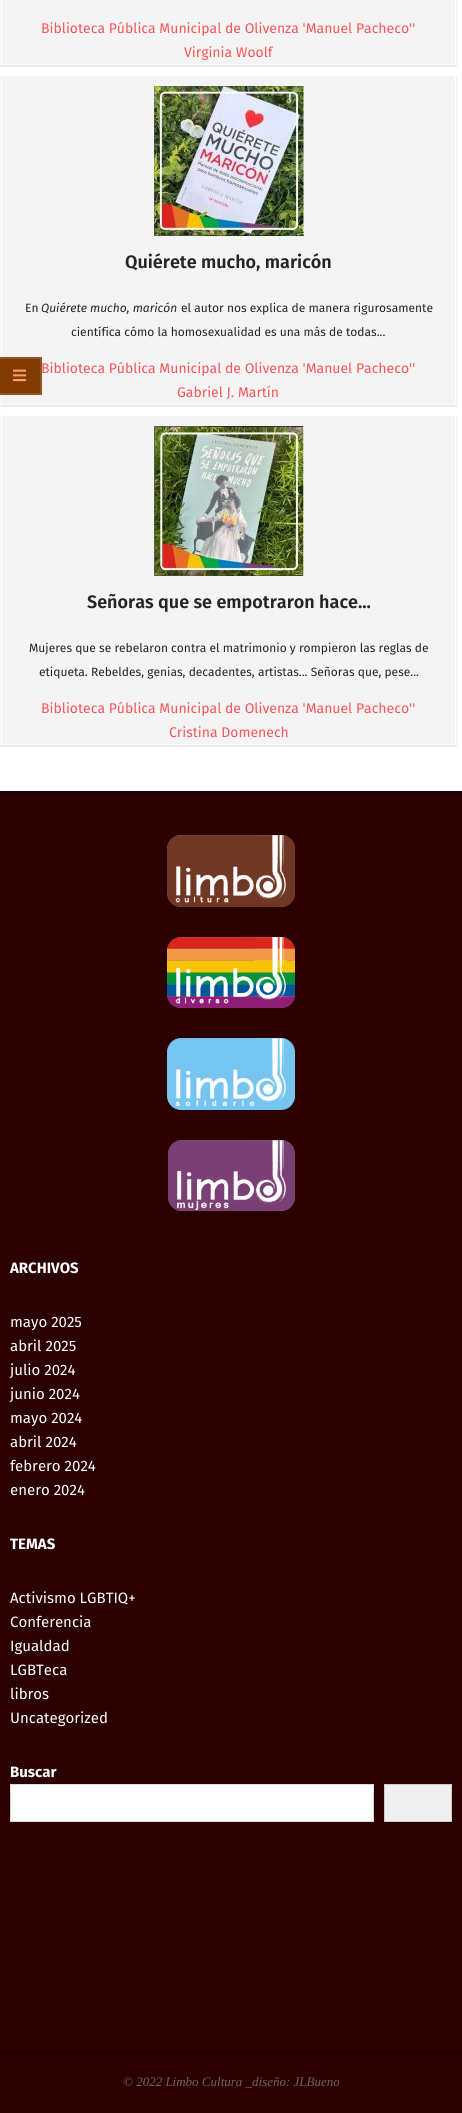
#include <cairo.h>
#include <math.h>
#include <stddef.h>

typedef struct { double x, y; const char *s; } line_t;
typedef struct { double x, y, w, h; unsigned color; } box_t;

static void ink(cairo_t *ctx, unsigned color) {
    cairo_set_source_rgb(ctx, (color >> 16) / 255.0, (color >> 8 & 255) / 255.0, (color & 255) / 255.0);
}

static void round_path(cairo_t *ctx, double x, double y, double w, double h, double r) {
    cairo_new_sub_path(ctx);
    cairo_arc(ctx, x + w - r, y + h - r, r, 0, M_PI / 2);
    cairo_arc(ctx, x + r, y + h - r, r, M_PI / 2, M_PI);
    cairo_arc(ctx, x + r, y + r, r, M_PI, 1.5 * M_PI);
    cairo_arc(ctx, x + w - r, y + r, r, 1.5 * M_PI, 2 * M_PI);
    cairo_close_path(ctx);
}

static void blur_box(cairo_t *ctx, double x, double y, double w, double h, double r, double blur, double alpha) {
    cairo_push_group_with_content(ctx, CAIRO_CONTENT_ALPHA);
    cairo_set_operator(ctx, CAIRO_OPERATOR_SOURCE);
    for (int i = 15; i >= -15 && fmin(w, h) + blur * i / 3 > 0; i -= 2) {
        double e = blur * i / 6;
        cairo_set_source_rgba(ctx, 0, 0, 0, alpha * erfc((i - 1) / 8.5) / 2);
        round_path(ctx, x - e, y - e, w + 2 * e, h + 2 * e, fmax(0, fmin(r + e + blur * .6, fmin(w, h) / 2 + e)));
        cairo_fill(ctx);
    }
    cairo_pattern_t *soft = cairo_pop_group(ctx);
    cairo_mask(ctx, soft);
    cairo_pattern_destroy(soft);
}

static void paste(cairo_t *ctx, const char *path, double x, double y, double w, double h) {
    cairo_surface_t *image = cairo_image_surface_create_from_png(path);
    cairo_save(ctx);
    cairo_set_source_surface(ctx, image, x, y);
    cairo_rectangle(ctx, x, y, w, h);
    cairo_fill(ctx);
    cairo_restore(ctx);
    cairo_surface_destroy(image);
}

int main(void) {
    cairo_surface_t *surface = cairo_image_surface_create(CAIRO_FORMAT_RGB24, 462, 2113);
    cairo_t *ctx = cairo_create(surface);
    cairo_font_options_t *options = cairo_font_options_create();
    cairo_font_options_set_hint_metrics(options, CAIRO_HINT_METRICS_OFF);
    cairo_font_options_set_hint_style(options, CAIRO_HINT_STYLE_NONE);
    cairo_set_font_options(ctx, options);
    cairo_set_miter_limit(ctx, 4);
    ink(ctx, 0x2B0000);
    cairo_paint(ctx);
    ink(ctx, 0xFFFFFF);
    cairo_rectangle(ctx, 0, 0, 462, 791);
    cairo_fill(ctx);
    ink(ctx, 0x000000);
    blur_box(ctx, 1, 76, 455, 330, 0, 1, 0.15);
    ink(ctx, 0xF4F4F4);
    cairo_rectangle(ctx, 1.5, 75.5, 454, 329);
    cairo_fill_preserve(ctx);
    ink(ctx, 0xFFFFFF);
    cairo_set_line_width(ctx, 1);
    cairo_stroke(ctx);
    {
        static const box_t items[] = {
            {0, 359, 40, 34, 0x823A03},
            {0, 357, 42, 2, 0x935525},
            {40, 357, 2, 38, 0x935525},
            {0, 393, 42, 2, 0x935525},
        };
        for (size_t i = 0; i < sizeof items / sizeof *items; i++) {
            ink(ctx, items[i].color);
            cairo_rectangle(ctx, items[i].x, items[i].y, items[i].w, items[i].h);
            cairo_fill(ctx);
        }
    }
    paste(ctx, "media/1.png", 13, 369, 14, 13);
    ink(ctx, 0x000000);
    blur_box(ctx, 1, -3, 455, 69, 0, 1, 0.15);
    ink(ctx, 0xF4F4F4);
    cairo_rectangle(ctx, 1.5, -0.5, 454, 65);
    cairo_fill_preserve(ctx);
    ink(ctx, 0xFFFFFF);
    cairo_stroke(ctx);
    cairo_select_font_face(ctx, "Fira Sans", CAIRO_FONT_SLANT_NORMAL, CAIRO_FONT_WEIGHT_NORMAL);
    cairo_set_font_size(ctx, 14);
    ink(ctx, 0xF85658);
    cairo_move_to(ctx, 41, 33);
    cairo_show_text(ctx, "Biblioteca Pública Municipal de Olivenza 'Manuel Pacheco''");
    cairo_move_to(ctx, 184, 57);
    cairo_show_text(ctx, "Virginia Woolf");
    paste(ctx, "media/2.png", 154, 86, 150, 150);
    cairo_select_font_face(ctx, "Fira Sans SemiBold", CAIRO_FONT_SLANT_NORMAL, CAIRO_FONT_WEIGHT_NORMAL);
    cairo_set_font_size(ctx, 18);
    ink(ctx, 0x242424);
    cairo_move_to(ctx, 125, 268);
    cairo_show_text(ctx, "Quiérete mucho, maricón");
    cairo_select_font_face(ctx, "Fira Sans", CAIRO_FONT_SLANT_NORMAL, CAIRO_FONT_WEIGHT_NORMAL);
    cairo_set_font_size(ctx, 12);
    cairo_move_to(ctx, 25, 312);
    cairo_show_text(ctx, "En");
    cairo_select_font_face(ctx, "Fira Sans", CAIRO_FONT_SLANT_ITALIC, CAIRO_FONT_WEIGHT_NORMAL);
    cairo_move_to(ctx, 41, 312);
    cairo_show_text(ctx, "Quiérete mucho, maricón");
    cairo_select_font_face(ctx, "Fira Sans", CAIRO_FONT_SLANT_NORMAL, CAIRO_FONT_WEIGHT_NORMAL);
    cairo_move_to(ctx, 181, 312);
    cairo_show_text(ctx, "el autor nos explica de manera rigurosamente");
    cairo_move_to(ctx, 71, 336);
    cairo_show_text(ctx, "científica cómo la homosexualidad es una más de todas...");
    cairo_set_font_size(ctx, 14);
    ink(ctx, 0xF85658);
    cairo_move_to(ctx, 41, 373);
    cairo_show_text(ctx, "Biblioteca Pública Municipal de Olivenza 'Manuel Pacheco''");
    cairo_move_to(ctx, 177, 397);
    cairo_show_text(ctx, "Gabriel J. Martín");
    ink(ctx, 0x000000);
    blur_box(ctx, 1, 416, 455, 330, 0, 1, 0.15);
    ink(ctx, 0xF4F4F4);
    cairo_rectangle(ctx, 1.5, 415.5, 454, 329);
    cairo_fill_preserve(ctx);
    ink(ctx, 0xFFFFFF);
    cairo_stroke(ctx);
    paste(ctx, "media/3.png", 154, 426, 150, 150);
    cairo_select_font_face(ctx, "Fira Sans SemiBold", CAIRO_FONT_SLANT_NORMAL, CAIRO_FONT_WEIGHT_NORMAL);
    cairo_set_font_size(ctx, 18);
    ink(ctx, 0x242424);
    cairo_move_to(ctx, 87, 608);
    cairo_show_text(ctx, "Señoras que se empotraron hace...");
    cairo_select_font_face(ctx, "Fira Sans", CAIRO_FONT_SLANT_NORMAL, CAIRO_FONT_WEIGHT_NORMAL);
    cairo_set_font_size(ctx, 12);
    cairo_move_to(ctx, 29, 652);
    cairo_show_text(ctx, "Mujeres que se rebelaron contra el matrimonio y rompieron las reglas de");
    cairo_move_to(ctx, 39, 676);
    cairo_show_text(ctx, "etiqueta. Rebeldes, genias, decadentes, artistas... Señoras que, pese...");
    cairo_set_font_size(ctx, 14);
    ink(ctx, 0xF85658);
    cairo_move_to(ctx, 41, 713);
    cairo_show_text(ctx, "Biblioteca Pública Municipal de Olivenza 'Manuel Pacheco''");
    cairo_move_to(ctx, 169, 737);
    cairo_show_text(ctx, "Cristina Domenech");
    ink(ctx, 0x250000);
    cairo_rectangle(ctx, 0, 791, 462, 4);
    cairo_fill(ctx);
    paste(ctx, "media/4.png", 167, 835, 128, 72);
    paste(ctx, "media/5.png", 167, 937, 128, 71);
    paste(ctx, "media/6.png", 167, 1038, 128, 72);
    paste(ctx, "media/7.png", 168, 1140, 127, 71);
    cairo_select_font_face(ctx, "Fira Sans", CAIRO_FONT_SLANT_NORMAL, CAIRO_FONT_WEIGHT_BOLD);
    cairo_set_font_size(ctx, 15);
    ink(ctx, 0xFFFFFF);
    cairo_move_to(ctx, 10, 1273);
    cairo_show_text(ctx, "ARCHIVOS");
    cairo_select_font_face(ctx, "Fira Sans", CAIRO_FONT_SLANT_NORMAL, CAIRO_FONT_WEIGHT_NORMAL);
    {
        static const line_t items[] = {
            {10, 1327, "mayo 2025"},
            {10, 1351, "abril 2025"},
            {10, 1375, "julio 2024"},
            {10, 1399, "junio 2024"},
            {10, 1423, "mayo 2024"},
            {10, 1447, "abril 2024"},
            {10, 1471, "febrero 2024"},
            {10, 1495, "enero 2024"},
        };
        for (size_t i = 0; i < sizeof items / sizeof *items; i++) {
            cairo_move_to(ctx, items[i].x, items[i].y);
            cairo_show_text(ctx, items[i].s);
        }
    }
    cairo_select_font_face(ctx, "Fira Sans", CAIRO_FONT_SLANT_NORMAL, CAIRO_FONT_WEIGHT_BOLD);
    cairo_move_to(ctx, 10, 1549);
    cairo_show_text(ctx, "TEMAS");
    cairo_select_font_face(ctx, "Fira Sans", CAIRO_FONT_SLANT_NORMAL, CAIRO_FONT_WEIGHT_NORMAL);
    {
        static const line_t items[] = {
            {10, 1603, "Activismo LGBTIQ+"},
            {10, 1627, "Conferencia"},
            {10, 1651, "Igualdad"},
            {10, 1675, "LGBTeca"},
            {10, 1699, "libros"},
            {10, 1723, "Uncategorized"},
        };
        for (size_t i = 0; i < sizeof items / sizeof *items; i++) {
            cairo_move_to(ctx, items[i].x, items[i].y);
            cairo_show_text(ctx, items[i].s);
        }
    }
    cairo_select_font_face(ctx, "Fira Sans", CAIRO_FONT_SLANT_NORMAL, CAIRO_FONT_WEIGHT_BOLD);
    cairo_move_to(ctx, 10, 1777);
    cairo_show_text(ctx, "Buscar");
    cairo_rectangle(ctx, 10.5, 1784.5, 363, 37);
    cairo_fill_preserve(ctx);
    ink(ctx, 0xDDDDDD);
    cairo_stroke(ctx);
    ink(ctx, 0xEFEFEF);
    cairo_rectangle(ctx, 384.5, 1784.5, 67, 37);
    cairo_fill_preserve(ctx);
    ink(ctx, 0xCCCCCC);
    cairo_stroke(ctx);
    ink(ctx, 0x1B0000);
    cairo_rectangle(ctx, 0, 2054, 462, 1);
    cairo_fill(ctx);
    cairo_select_font_face(ctx, "Liberation Serif", CAIRO_FONT_SLANT_ITALIC, CAIRO_FONT_WEIGHT_NORMAL);
    cairo_set_font_size(ctx, 13);
    ink(ctx, 0x756060);
    cairo_move_to(ctx, 123, 2086);
    cairo_show_text(ctx, "© 2022 Limbo Cultura _diseño: JLBueno");
    cairo_surface_write_to_png(surface, "image.png");
    cairo_font_options_destroy(options);
    cairo_destroy(ctx);
    cairo_surface_destroy(surface);
    return 0;
}
